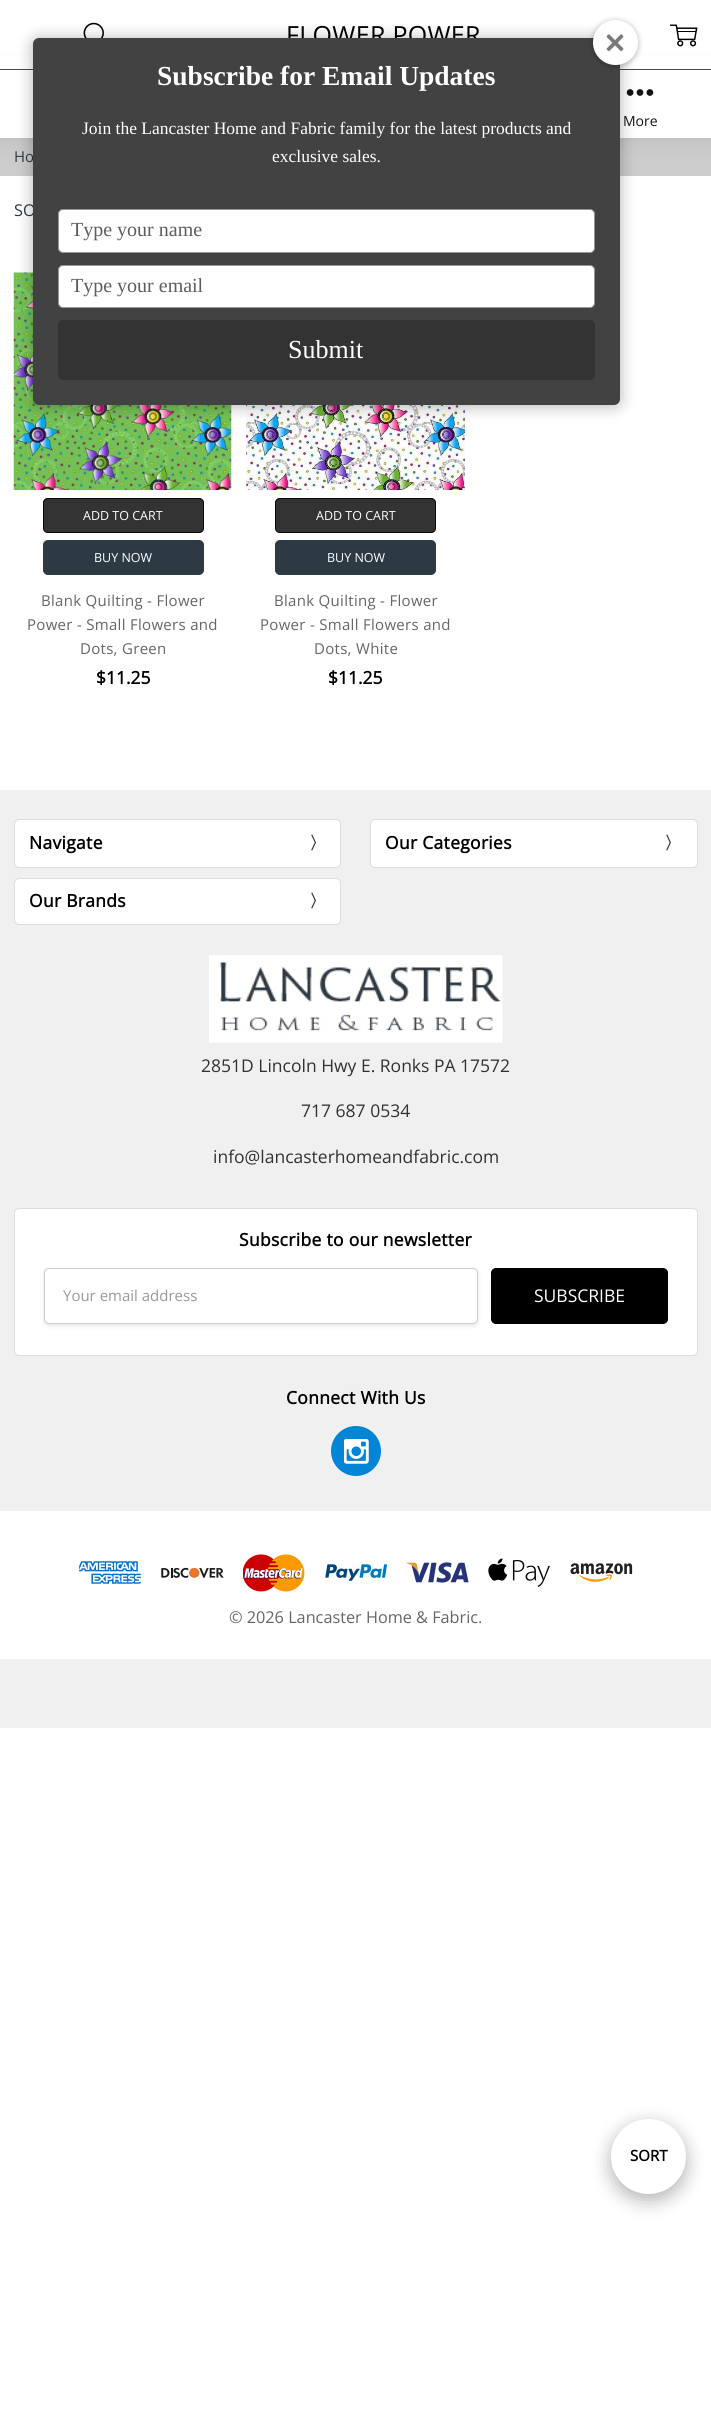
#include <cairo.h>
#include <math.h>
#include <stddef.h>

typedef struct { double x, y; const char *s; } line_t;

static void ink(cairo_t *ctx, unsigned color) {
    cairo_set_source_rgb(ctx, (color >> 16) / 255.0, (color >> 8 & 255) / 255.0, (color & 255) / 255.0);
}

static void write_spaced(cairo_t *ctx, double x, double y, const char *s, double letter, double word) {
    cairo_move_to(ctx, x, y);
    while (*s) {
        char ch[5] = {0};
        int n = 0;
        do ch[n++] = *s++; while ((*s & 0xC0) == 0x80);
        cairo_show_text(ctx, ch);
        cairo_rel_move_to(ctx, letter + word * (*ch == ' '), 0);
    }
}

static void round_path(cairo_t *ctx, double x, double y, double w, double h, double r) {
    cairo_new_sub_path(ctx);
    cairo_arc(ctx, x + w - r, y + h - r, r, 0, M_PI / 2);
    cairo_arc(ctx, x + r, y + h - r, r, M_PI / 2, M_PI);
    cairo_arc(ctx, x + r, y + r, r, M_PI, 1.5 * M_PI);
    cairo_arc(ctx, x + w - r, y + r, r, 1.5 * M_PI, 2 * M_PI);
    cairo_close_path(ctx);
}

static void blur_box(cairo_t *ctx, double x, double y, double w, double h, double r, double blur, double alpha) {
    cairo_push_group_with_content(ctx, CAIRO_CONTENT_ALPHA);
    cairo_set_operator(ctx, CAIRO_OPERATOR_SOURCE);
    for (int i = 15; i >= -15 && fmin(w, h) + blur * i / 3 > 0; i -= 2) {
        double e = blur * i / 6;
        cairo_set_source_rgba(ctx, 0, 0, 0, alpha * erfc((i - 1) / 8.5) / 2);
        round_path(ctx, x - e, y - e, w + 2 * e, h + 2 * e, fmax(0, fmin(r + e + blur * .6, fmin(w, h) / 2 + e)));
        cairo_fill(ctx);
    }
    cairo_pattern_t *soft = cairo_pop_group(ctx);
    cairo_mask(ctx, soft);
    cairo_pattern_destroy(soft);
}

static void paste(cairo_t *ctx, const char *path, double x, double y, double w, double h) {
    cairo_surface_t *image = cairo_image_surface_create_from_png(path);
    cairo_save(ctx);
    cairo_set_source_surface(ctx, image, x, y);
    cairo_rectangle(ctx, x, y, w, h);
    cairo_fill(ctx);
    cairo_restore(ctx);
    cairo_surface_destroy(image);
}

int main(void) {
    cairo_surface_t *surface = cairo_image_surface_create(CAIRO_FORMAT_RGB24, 711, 2412);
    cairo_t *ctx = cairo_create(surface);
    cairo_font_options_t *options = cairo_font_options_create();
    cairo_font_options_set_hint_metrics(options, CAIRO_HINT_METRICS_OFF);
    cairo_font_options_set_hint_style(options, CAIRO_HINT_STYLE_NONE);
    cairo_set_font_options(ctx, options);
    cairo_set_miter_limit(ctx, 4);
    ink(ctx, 0xFFFFFF);
    cairo_paint(ctx);
    ink(ctx, 0xCCCCCC);
    cairo_rectangle(ctx, 0, 138, 711, 38);
    cairo_fill(ctx);
    ink(ctx, 0x000000);
    blur_box(ctx, 0, 69, 711, 69, 0, 9.5, 0.1);
    ink(ctx, 0xFFFFFF);
    cairo_rectangle(ctx, 0, 57, 711, 12);
    cairo_fill(ctx);
    ink(ctx, 0x48494B);
    cairo_rectangle(ctx, 0, 69, 711, 1);
    cairo_fill(ctx);
    paste(ctx, "media/1.png", 83, 22, 21, 16);
    paste(ctx, "media/2.png", 670, 24, 28, 23);
    cairo_select_font_face(ctx, "Open Sans", CAIRO_FONT_SLANT_NORMAL, CAIRO_FONT_WEIGHT_NORMAL);
    cairo_set_font_size(ctx, 25);
    ink(ctx, 0x000000);
    write_spaced(ctx, 286, 44, "FLOWER POWER", 0.3, 0);
    cairo_set_font_size(ctx, 16.25);
    ink(ctx, 0x2D3A44);
    cairo_move_to(ctx, 14, 216);
    cairo_show_text(ctx, "SO");
    ink(ctx, 0x000000);
    blur_box(ctx, 611, 2125, 75, 75, 37.5, 9.5, 0.3);
    ink(ctx, 0xFFFFFF);
    cairo_arc(ctx, 648.5, 2156.5, 37.5, 0, 2 * M_PI);
    cairo_fill(ctx);
    cairo_select_font_face(ctx, "Open Sans", CAIRO_FONT_SLANT_NORMAL, CAIRO_FONT_WEIGHT_BOLD);
    cairo_set_font_size(ctx, 15);
    ink(ctx, 0x000000);
    cairo_move_to(ctx, 630, 2161);
    cairo_show_text(ctx, "SORT");
    paste(ctx, "media/3.png", 13, 272, 219, 218);
    ink(ctx, 0x333333);
    round_path(ctx, 43, 498, 161, 35, 5);
    cairo_fill(ctx);
    round_path(ctx, 43.5, 498.5, 160, 34, 4.5);
    cairo_set_source_rgba(ctx, 0, 0, 0, 0.8);
    cairo_set_line_width(ctx, 1);
    cairo_stroke(ctx);
    cairo_select_font_face(ctx, "Open Sans", CAIRO_FONT_SLANT_NORMAL, CAIRO_FONT_WEIGHT_NORMAL);
    cairo_set_font_size(ctx, 12.5);
    ink(ctx, 0xFFFFFF);
    cairo_move_to(ctx, 83, 520);
    cairo_show_text(ctx, "ADD TO CART");
    ink(ctx, 0x2D3A44);
    round_path(ctx, 43.5, 540.5, 160, 34, 4.5);
    cairo_fill_preserve(ctx);
    cairo_stroke(ctx);
    ink(ctx, 0xFFFFFF);
    cairo_move_to(ctx, 94, 562);
    cairo_show_text(ctx, "BUY NOW");
    cairo_set_font_size(ctx, 15);
    ink(ctx, 0x666666);
    {
        static const line_t items[] = {
            {41, 606, "Blank Quilting - Flower"},
            {27, 630, "Power - Small Flowers and"},
            {80, 654, "Dots, Green"},
        };
        for (size_t i = 0; i < sizeof items / sizeof *items; i++) {
            write_spaced(ctx, items[i].x, items[i].y, items[i].s, 0.3, 0);
        }
    }
    cairo_select_font_face(ctx, "Open Sans", CAIRO_FONT_SLANT_NORMAL, CAIRO_FONT_WEIGHT_BOLD);
    cairo_set_font_size(ctx, 17.5);
    ink(ctx, 0x000000);
    cairo_move_to(ctx, 96, 684);
    cairo_show_text(ctx, "$11.25");
    paste(ctx, "media/4.png", 246, 405, 219, 85);
    ink(ctx, 0x333333);
    round_path(ctx, 275, 498, 161, 35, 5);
    cairo_fill(ctx);
    round_path(ctx, 275.5, 498.5, 160, 34, 4.5);
    cairo_set_source_rgba(ctx, 0, 0, 0, 0.8);
    cairo_stroke(ctx);
    cairo_select_font_face(ctx, "Open Sans", CAIRO_FONT_SLANT_NORMAL, CAIRO_FONT_WEIGHT_NORMAL);
    cairo_set_font_size(ctx, 12.5);
    ink(ctx, 0xFFFFFF);
    cairo_move_to(ctx, 316, 520);
    cairo_show_text(ctx, "ADD TO CART");
    ink(ctx, 0x2D3A44);
    round_path(ctx, 275.5, 540.5, 160, 34, 4.5);
    cairo_fill_preserve(ctx);
    cairo_stroke(ctx);
    ink(ctx, 0xFFFFFF);
    cairo_move_to(ctx, 327, 562);
    cairo_show_text(ctx, "BUY NOW");
    cairo_set_font_size(ctx, 15);
    ink(ctx, 0x666666);
    {
        static const line_t items[] = {
            {274, 606, "Blank Quilting - Flower"},
            {260, 630, "Power - Small Flowers and"},
            {314, 654, "Dots, White"},
        };
        for (size_t i = 0; i < sizeof items / sizeof *items; i++) {
            write_spaced(ctx, items[i].x, items[i].y, items[i].s, 0.3, 0);
        }
    }
    cairo_select_font_face(ctx, "Open Sans", CAIRO_FONT_SLANT_NORMAL, CAIRO_FONT_WEIGHT_BOLD);
    cairo_set_font_size(ctx, 17.5);
    ink(ctx, 0x000000);
    cairo_move_to(ctx, 328, 684);
    cairo_show_text(ctx, "$11.25");
    cairo_select_font_face(ctx, "Open Sans", CAIRO_FONT_SLANT_NORMAL, CAIRO_FONT_WEIGHT_NORMAL);
    cairo_set_font_size(ctx, 15);
    ink(ctx, 0x2D3A44);
    cairo_move_to(ctx, 14, 162);
    cairo_show_text(ctx, "Ho");
    ink(ctx, 0xFFFFFF);
    cairo_rectangle(ctx, 0, 70, 711, 68);
    cairo_fill(ctx);
    paste(ctx, "media/6.png", 626, 89, 28, 7);
    ink(ctx, 0x000000);
    blur_box(ctx, 33, 39, 587, 367, 6, 8, 0.3);
    ink(ctx, 0x424242);
    round_path(ctx, 33, 38, 587, 367, 6);
    cairo_fill(ctx);
    ink(ctx, 0x000000);
    blur_box(ctx, 593, 21, 45, 45, 22.5, 3, 0.3);
    ink(ctx, 0xFFFFFF);
    cairo_arc(ctx, 615.5, 42.5, 22.5, 0, 2 * M_PI);
    cairo_fill(ctx);
    paste(ctx, "media/5.png", 606, 34, 18, 18);
    cairo_select_font_face(ctx, "Liberation Serif", CAIRO_FONT_SLANT_NORMAL, CAIRO_FONT_WEIGHT_BOLD);
    cairo_set_font_size(ctx, 27.5);
    cairo_move_to(ctx, 157, 85);
    cairo_show_text(ctx, "Subscribe for Email Updates");
    cairo_select_font_face(ctx, "Liberation Serif", CAIRO_FONT_SLANT_NORMAL, CAIRO_FONT_WEIGHT_NORMAL);
    cairo_set_font_size(ctx, 17.5);
    cairo_move_to(ctx, 82, 134);
    cairo_show_text(ctx, "Join the Lancaster Home and Fabric family for the latest products and");
    cairo_move_to(ctx, 272, 162);
    cairo_show_text(ctx, "exclusive sales.");
    round_path(ctx, 58.5, 209.5, 536, 43, 4.5);
    cairo_fill_preserve(ctx);
    ink(ctx, 0x979797);
    cairo_stroke(ctx);
    cairo_set_font_size(ctx, 20);
    ink(ctx, 0x5D5D5D);
    cairo_move_to(ctx, 71, 236);
    cairo_show_text(ctx, "Type your name");
    ink(ctx, 0xFFFFFF);
    round_path(ctx, 58.5, 265.5, 536, 42, 4.5);
    cairo_fill_preserve(ctx);
    ink(ctx, 0x979797);
    cairo_stroke(ctx);
    ink(ctx, 0x5D5D5D);
    cairo_move_to(ctx, 71, 292);
    cairo_show_text(ctx, "Type your email");
    ink(ctx, 0x333333);
    round_path(ctx, 58, 320, 537, 60, 5);
    cairo_fill(ctx);
    cairo_set_font_size(ctx, 26);
    ink(ctx, 0xFFFFFF);
    cairo_move_to(ctx, 288, 358);
    cairo_show_text(ctx, "Submit");
    cairo_select_font_face(ctx, "Open Sans", CAIRO_FONT_SLANT_NORMAL, CAIRO_FONT_WEIGHT_NORMAL);
    cairo_set_font_size(ctx, 14);
    ink(ctx, 0x131313);
    cairo_move_to(ctx, 623, 126);
    cairo_show_text(ctx, "More");
    ink(ctx, 0xF0F0F0);
    cairo_rectangle(ctx, 0, 790, 711, 938);
    cairo_fill(ctx);
    ink(ctx, 0xFFFFFF);
    round_path(ctx, 14.5, 819.5, 326, 48, 4.5);
    cairo_fill_preserve(ctx);
    ink(ctx, 0xDDDDDD);
    cairo_stroke(ctx);
    cairo_select_font_face(ctx, "Open Sans", CAIRO_FONT_SLANT_NORMAL, CAIRO_FONT_WEIGHT_BOLD);
    cairo_set_font_size(ctx, 17.5);
    ink(ctx, 0x000000);
    write_spaced(ctx, 29, 849, "Navigate", 0.3, 0);
    cairo_select_font_face(ctx, "WenQuanYi Zen Hei", CAIRO_FONT_SLANT_NORMAL, CAIRO_FONT_WEIGHT_BOLD);
    ink(ctx, 0x323232);
    write_spaced(ctx, 309, 849, "〉", 0.3, 0);
    ink(ctx, 0xFFFFFF);
    round_path(ctx, 370.5, 819.5, 327, 48, 4.5);
    cairo_fill_preserve(ctx);
    ink(ctx, 0xDDDDDD);
    cairo_stroke(ctx);
    cairo_select_font_face(ctx, "Open Sans", CAIRO_FONT_SLANT_NORMAL, CAIRO_FONT_WEIGHT_BOLD);
    ink(ctx, 0x000000);
    write_spaced(ctx, 385, 849, "Our Categories", 0.3, 0);
    cairo_select_font_face(ctx, "WenQuanYi Zen Hei", CAIRO_FONT_SLANT_NORMAL, CAIRO_FONT_WEIGHT_BOLD);
    ink(ctx, 0x323232);
    write_spaced(ctx, 664, 849, "〉", 0.3, 0);
    ink(ctx, 0xFFFFFF);
    round_path(ctx, 14.5, 878.5, 326, 46, 4.5);
    cairo_fill_preserve(ctx);
    ink(ctx, 0xDDDDDD);
    cairo_stroke(ctx);
    cairo_select_font_face(ctx, "Open Sans", CAIRO_FONT_SLANT_NORMAL, CAIRO_FONT_WEIGHT_BOLD);
    ink(ctx, 0x000000);
    write_spaced(ctx, 29, 907, "Our Brands", 0.3, 0);
    cairo_select_font_face(ctx, "WenQuanYi Zen Hei", CAIRO_FONT_SLANT_NORMAL, CAIRO_FONT_WEIGHT_BOLD);
    ink(ctx, 0x323232);
    write_spaced(ctx, 309, 907, "〉", 0.3, 0);
    paste(ctx, "media/7.png", 209, 955, 294, 88);
    cairo_select_font_face(ctx, "Open Sans", CAIRO_FONT_SLANT_NORMAL, CAIRO_FONT_WEIGHT_NORMAL);
    {
        static const line_t items[] = {
            {201, 1072, "2851D Lincoln Hwy E. Ronks PA 17572"},
            {301, 1117, "717 687 0534"},
            {213, 1163, "info@lancasterhomeandfabric.com"},
        };
        for (size_t i = 0; i < sizeof items / sizeof *items; i++) {
            cairo_move_to(ctx, items[i].x, items[i].y);
            cairo_show_text(ctx, items[i].s);
        }
    }
    ink(ctx, 0xFFFFFF);
    round_path(ctx, 14.5, 1208.5, 683, 147, 4.5);
    cairo_fill_preserve(ctx);
    ink(ctx, 0xDDDDDD);
    cairo_stroke(ctx);
    cairo_select_font_face(ctx, "Open Sans", CAIRO_FONT_SLANT_NORMAL, CAIRO_FONT_WEIGHT_BOLD);
    ink(ctx, 0x000000);
    write_spaced(ctx, 239, 1246, "Subscribe to our newsletter", 0.3, 0);
    ink(ctx, 0x000000);
    blur_box(ctx, 44, 1270, 434, 56, 5, 2.5, 0.1);
    ink(ctx, 0xFFFFFF);
    round_path(ctx, 44.5, 1268.5, 433, 55, 4.5);
    cairo_fill_preserve(ctx);
    ink(ctx, 0xCCCCCC);
    cairo_stroke(ctx);
    cairo_select_font_face(ctx, "Open Sans", CAIRO_FONT_SLANT_NORMAL, CAIRO_FONT_WEIGHT_NORMAL);
    cairo_set_font_size(ctx, 15);
    ink(ctx, 0x999999);
    cairo_move_to(ctx, 63, 1301);
    cairo_show_text(ctx, "Your email address");
    ink(ctx, 0x000000);
    round_path(ctx, 491.5, 1268.5, 176, 55, 4.5);
    cairo_fill_preserve(ctx);
    cairo_stroke(ctx);
    cairo_set_font_size(ctx, 17.5);
    ink(ctx, 0xFFFFFF);
    cairo_move_to(ctx, 534, 1302);
    cairo_show_text(ctx, "SUBSCRIBE");
    cairo_select_font_face(ctx, "Open Sans", CAIRO_FONT_SLANT_NORMAL, CAIRO_FONT_WEIGHT_BOLD);
    ink(ctx, 0x000000);
    write_spaced(ctx, 286, 1404, "Connect With Us", 0.3, 0);
    ink(ctx, 0x0085D7);
    cairo_new_path(ctx);
    cairo_arc(ctx, 356, 1451, 25, 0, 2 * M_PI);
    cairo_fill(ctx);
    paste(ctx, "media/8.png", 344, 1439, 25, 25);
    ink(ctx, 0xFFFFFF);
    cairo_rectangle(ctx, 0, 1511, 711, 148);
    cairo_fill(ctx);
    paste(ctx, "media/9.png", 79, 1561, 62, 23);
    paste(ctx, "media/10.png", 161, 1567, 63, 11);
    paste(ctx, "media/11.png", 243, 1554, 62, 38);
    paste(ctx, "media/12.png", 325, 1564, 62, 17);
    paste(ctx, "media/13.png", 406, 1562, 63, 21);
    paste(ctx, "media/14.png", 488, 1558, 62, 29);
    paste(ctx, "media/15.png", 570, 1563, 63, 19);
    cairo_select_font_face(ctx, "Open Sans", CAIRO_FONT_SLANT_NORMAL, CAIRO_FONT_WEIGHT_NORMAL);
    cairo_set_font_size(ctx, 16.25);
    ink(ctx, 0x666666);
    cairo_move_to(ctx, 229, 1623);
    cairo_show_text(ctx, "© 2026 Lancaster Home & Fabric.");
    cairo_surface_write_to_png(surface, "image.png");
    cairo_font_options_destroy(options);
    cairo_destroy(ctx);
    cairo_surface_destroy(surface);
    return 0;
}
